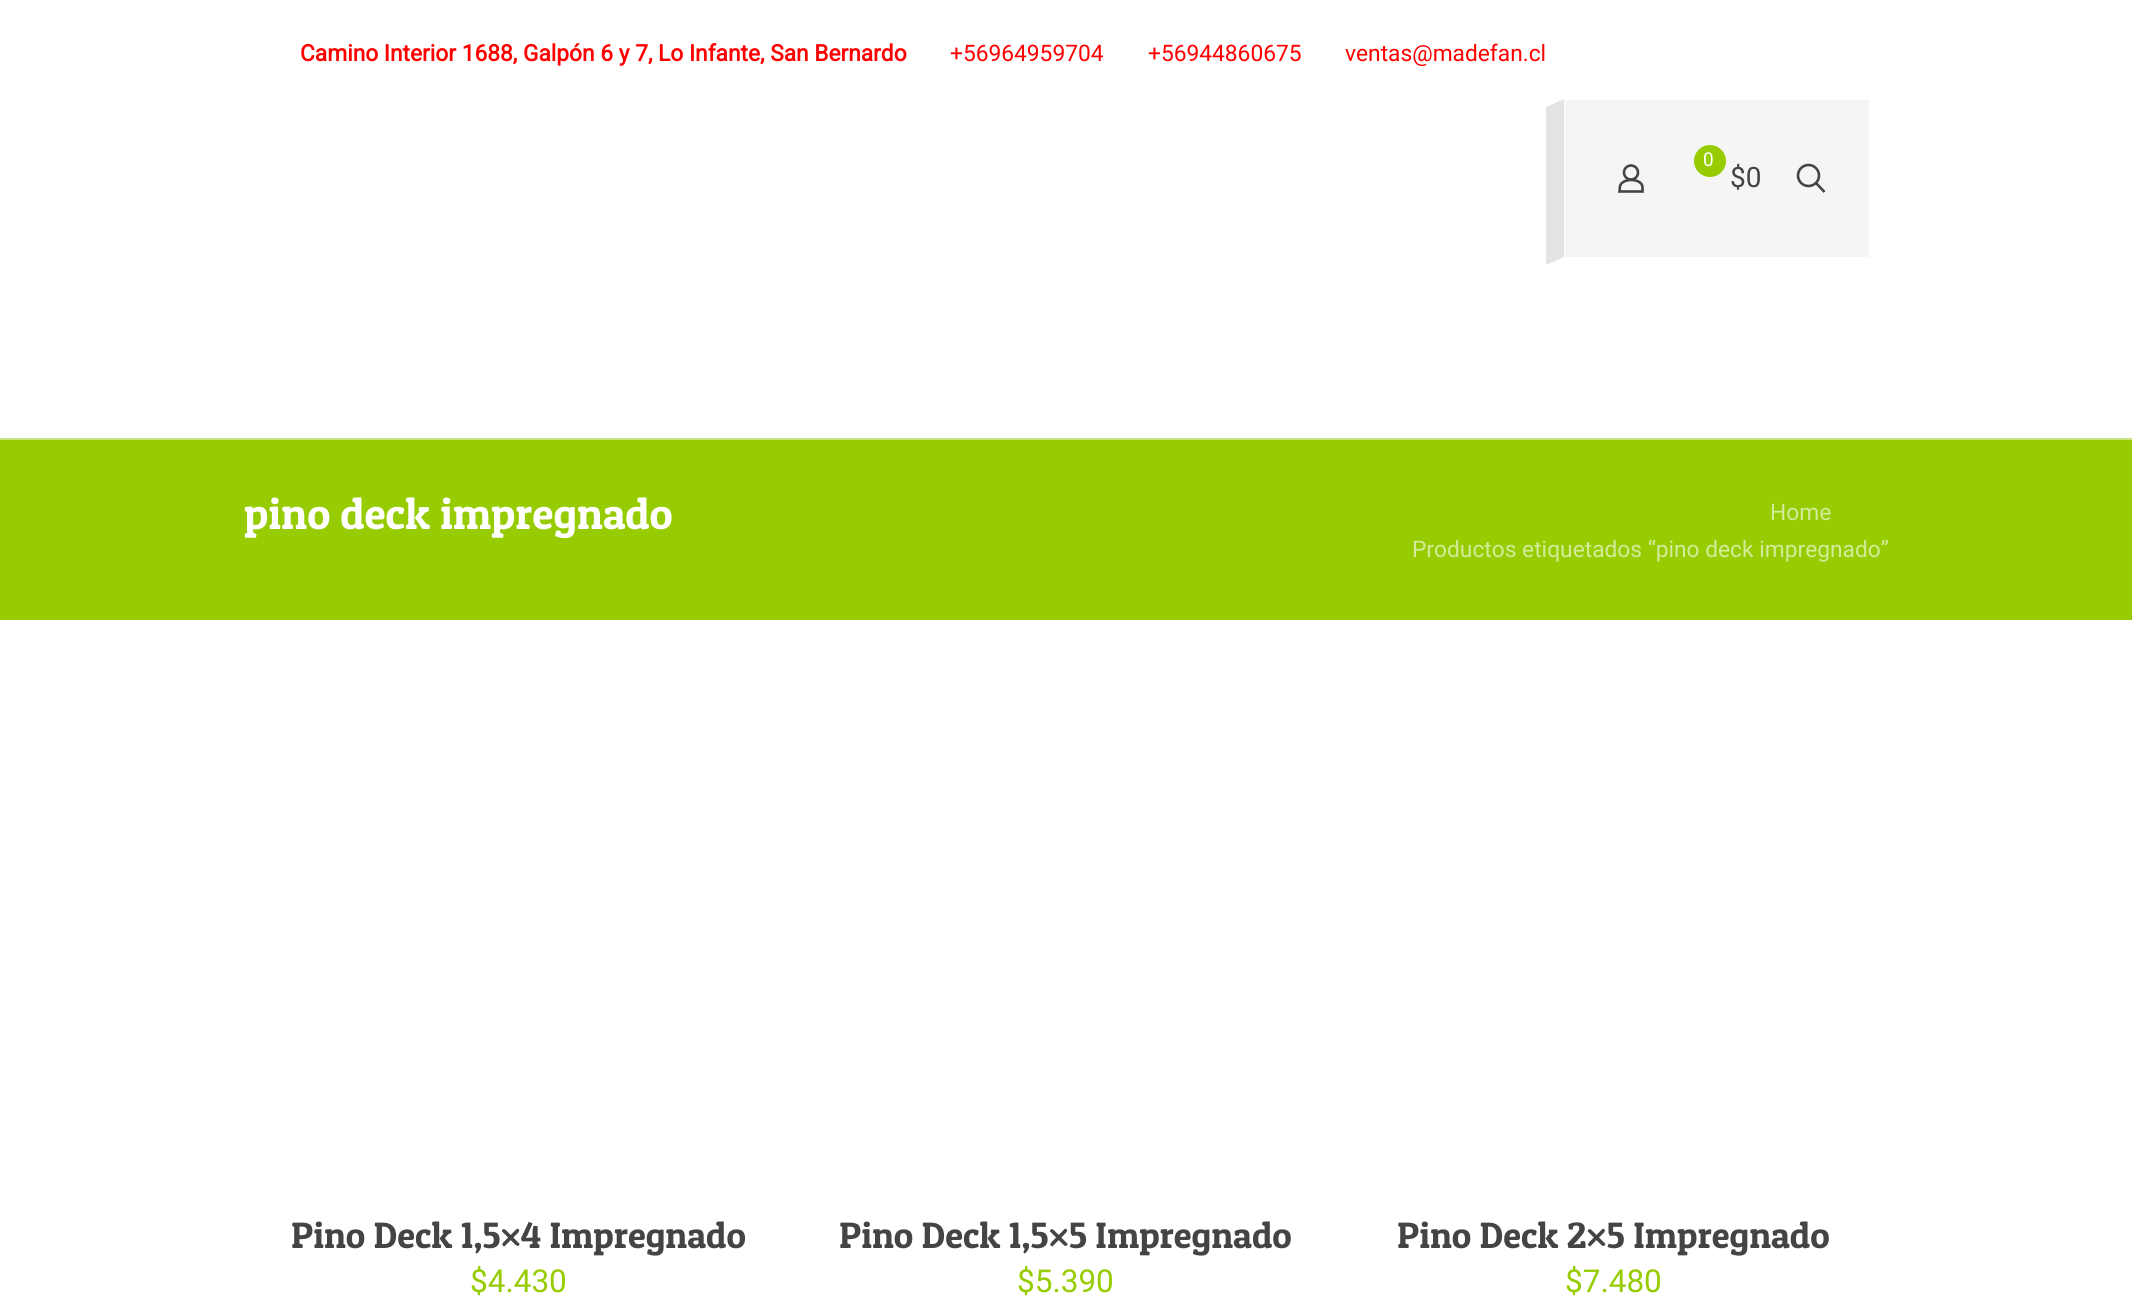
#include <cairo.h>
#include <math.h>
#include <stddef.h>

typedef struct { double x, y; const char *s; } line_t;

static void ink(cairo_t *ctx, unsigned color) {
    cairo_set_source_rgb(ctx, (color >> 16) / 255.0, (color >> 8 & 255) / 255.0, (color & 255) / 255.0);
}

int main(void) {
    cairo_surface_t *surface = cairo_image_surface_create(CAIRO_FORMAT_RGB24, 2132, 1296);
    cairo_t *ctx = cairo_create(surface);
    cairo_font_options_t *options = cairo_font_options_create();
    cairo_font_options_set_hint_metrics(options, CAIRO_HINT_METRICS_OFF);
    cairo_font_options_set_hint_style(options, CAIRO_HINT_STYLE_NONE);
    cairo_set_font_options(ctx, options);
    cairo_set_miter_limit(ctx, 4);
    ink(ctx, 0xFFFFFF);
    cairo_paint(ctx);
    cairo_select_font_face(ctx, "Roboto", CAIRO_FONT_SLANT_NORMAL, CAIRO_FONT_WEIGHT_BOLD);
    cairo_set_font_size(ctx, 22.75);
    ink(ctx, 0xFF0000);
    cairo_move_to(ctx, 300, 61);
    cairo_show_text(ctx, "Camino Interior 1688, Galpón 6 y 7, Lo Infante, San Bernardo");
    cairo_select_font_face(ctx, "Roboto", CAIRO_FONT_SLANT_NORMAL, CAIRO_FONT_WEIGHT_NORMAL);
    {
        static const line_t items[] = {
            {950, 61, "+56964959704"},
            {1148, 61, "+56944860675"},
            {1345, 61, "ventas@madefan.cl"},
        };
        for (size_t i = 0; i < sizeof items / sizeof *items; i++) {
            cairo_move_to(ctx, items[i].x, items[i].y);
            cairo_show_text(ctx, items[i].s);
        }
    }
    ink(ctx, 0xF5F5F5);
    cairo_rectangle(ctx, 1565, 100, 304, 157);
    cairo_fill(ctx);
    ink(ctx, 0xE3E3E3);
    cairo_new_path(ctx);
    cairo_move_to(ctx, 1546, 107);
    cairo_line_to(ctx, 1564, 99);
    cairo_line_to(ctx, 1564, 257);
    cairo_line_to(ctx, 1546, 265);
    cairo_close_path(ctx);
    cairo_fill(ctx);
    cairo_arc(ctx, 1631, 172.5, 7, 0, 2 * M_PI);
    ink(ctx, 0x444444);
    cairo_set_line_width(ctx, 2.6);
    cairo_stroke(ctx);
    cairo_new_path(ctx);
    cairo_move_to(ctx, 1642.5, 187.5);
    cairo_line_to(ctx, 1642.5, 191.5);
    cairo_line_to(ctx, 1619.5, 191.5);
    cairo_line_to(ctx, 1620, 186);
    cairo_curve_to(ctx, 1622.5, 177.5, 1642.5, 178, 1642.5, 187.5);
    cairo_close_path(ctx);
    cairo_stroke(ctx);
    ink(ctx, 0x97CC02);
    cairo_arc(ctx, 1710, 161, 16, 0, 2 * M_PI);
    cairo_fill(ctx);
    cairo_set_font_size(ctx, 19);
    ink(ctx, 0xFFFFFF);
    cairo_move_to(ctx, 1703, 166);
    cairo_show_text(ctx, "0");
    cairo_set_font_size(ctx, 28);
    ink(ctx, 0x444444);
    cairo_move_to(ctx, 1730, 187);
    cairo_show_text(ctx, "$0");
    cairo_new_path(ctx);
    cairo_arc(ctx, 1808.5, 175.5, 10.5, 0, 2 * M_PI);
    cairo_stroke(ctx);
    cairo_new_path(ctx);
    cairo_move_to(ctx, 1816, 183);
    cairo_line_to(ctx, 1824.5, 192);
    cairo_stroke(ctx);
    ink(ctx, 0x97CC02);
    cairo_rectangle(ctx, 0, 440, 2132, 180);
    cairo_fill(ctx);
    ink(ctx, 0xCBE681);
    cairo_rectangle(ctx, 0, 438, 2132, 2);
    cairo_fill(ctx);
    cairo_select_font_face(ctx, "Patua One", CAIRO_FONT_SLANT_NORMAL, CAIRO_FONT_WEIGHT_NORMAL);
    cairo_set_font_size(ctx, 43.75);
    ink(ctx, 0xFFFFFF);
    cairo_move_to(ctx, 244, 529);
    cairo_show_text(ctx, "pino deck impregnado");
    cairo_select_font_face(ctx, "Roboto", CAIRO_FONT_SLANT_NORMAL, CAIRO_FONT_WEIGHT_NORMAL);
    cairo_set_font_size(ctx, 22.75);
    ink(ctx, 0xD5EB9A);
    cairo_move_to(ctx, 1770, 520);
    cairo_show_text(ctx, "Home");
    cairo_move_to(ctx, 1412, 557);
    cairo_show_text(ctx, "Productos etiquetados “pino deck impregnado”");
    cairo_select_font_face(ctx, "Patua One", CAIRO_FONT_SLANT_NORMAL, CAIRO_FONT_WEIGHT_NORMAL);
    cairo_set_font_size(ctx, 36.75);
    ink(ctx, 0x444444);
    cairo_move_to(ctx, 291, 1248);
    cairo_show_text(ctx, "Pino Deck 1,5×4 Impregnado");
    cairo_select_font_face(ctx, "Roboto", CAIRO_FONT_SLANT_NORMAL, CAIRO_FONT_WEIGHT_NORMAL);
    cairo_set_font_size(ctx, 31.5);
    ink(ctx, 0x97CC02);
    cairo_move_to(ctx, 470, 1292);
    cairo_show_text(ctx, "$4.430");
    cairo_select_font_face(ctx, "Patua One", CAIRO_FONT_SLANT_NORMAL, CAIRO_FONT_WEIGHT_NORMAL);
    cairo_set_font_size(ctx, 36.75);
    ink(ctx, 0x444444);
    cairo_move_to(ctx, 839, 1248);
    cairo_show_text(ctx, "Pino Deck 1,5×5 Impregnado");
    cairo_select_font_face(ctx, "Roboto", CAIRO_FONT_SLANT_NORMAL, CAIRO_FONT_WEIGHT_NORMAL);
    cairo_set_font_size(ctx, 31.5);
    ink(ctx, 0x97CC02);
    cairo_move_to(ctx, 1017, 1292);
    cairo_show_text(ctx, "$5.390");
    cairo_select_font_face(ctx, "Patua One", CAIRO_FONT_SLANT_NORMAL, CAIRO_FONT_WEIGHT_NORMAL);
    cairo_set_font_size(ctx, 36.75);
    ink(ctx, 0x444444);
    cairo_move_to(ctx, 1397, 1248);
    cairo_show_text(ctx, "Pino Deck 2×5 Impregnado");
    cairo_select_font_face(ctx, "Roboto", CAIRO_FONT_SLANT_NORMAL, CAIRO_FONT_WEIGHT_NORMAL);
    cairo_set_font_size(ctx, 31.5);
    ink(ctx, 0x97CC02);
    cairo_move_to(ctx, 1565, 1292);
    cairo_show_text(ctx, "$7.480");
    cairo_surface_write_to_png(surface, "image.png");
    cairo_font_options_destroy(options);
    cairo_destroy(ctx);
    cairo_surface_destroy(surface);
    return 0;
}
